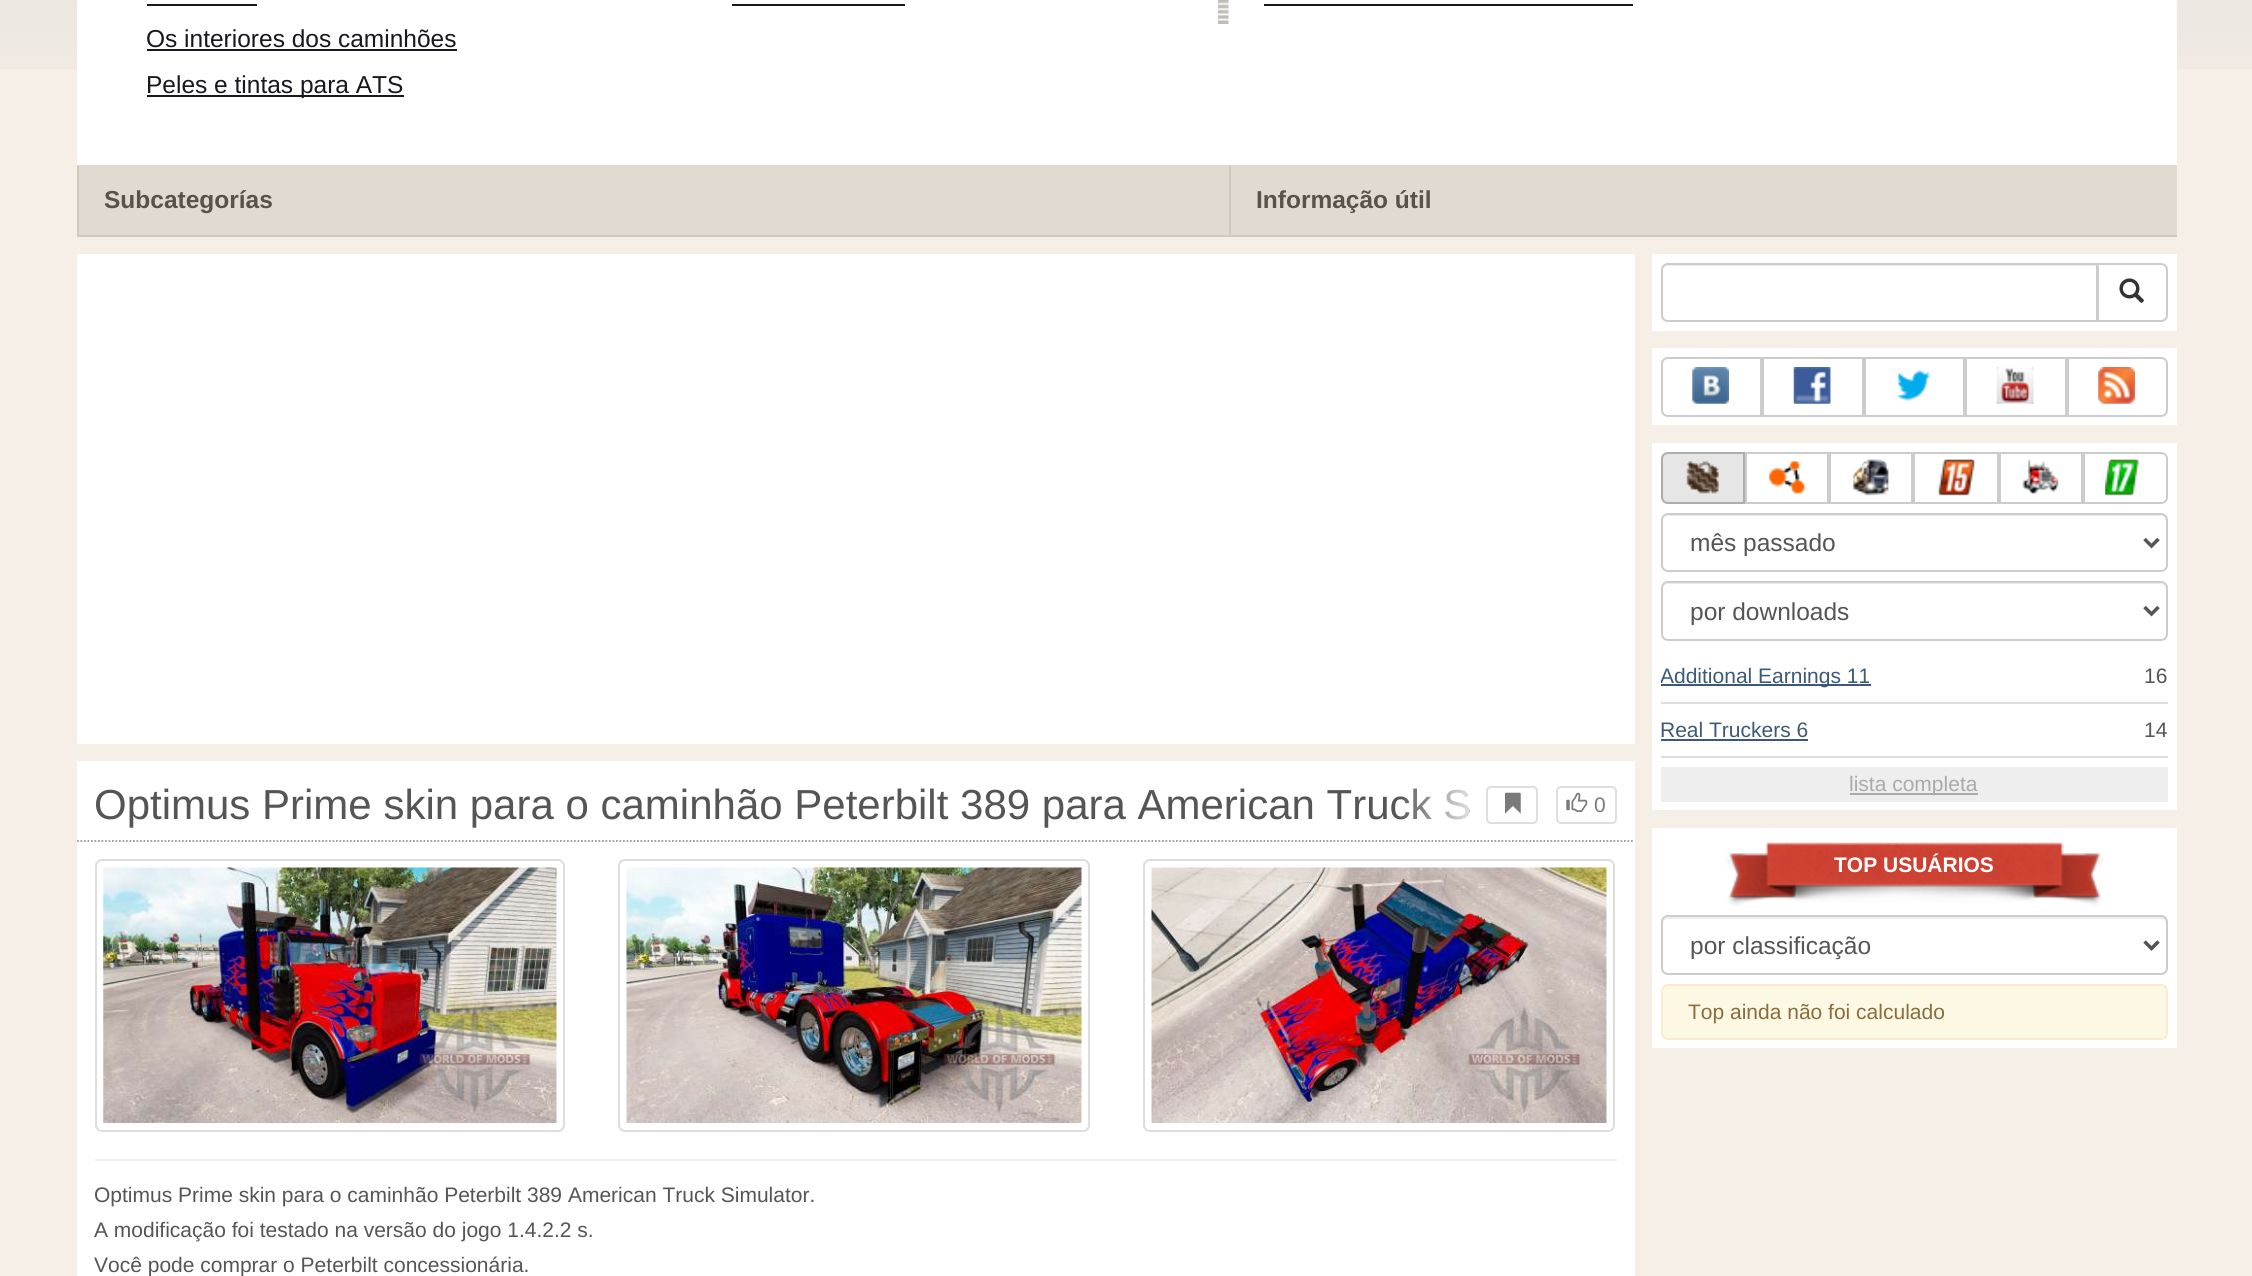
#include <cairo.h>
#include <math.h>
#include <stddef.h>

typedef struct { double x, y; const char *s; } line_t;
typedef struct { double x, y, w, h; unsigned color; } box_t;

static void ink(cairo_t *ctx, unsigned color) {
    cairo_set_source_rgb(ctx, (color >> 16) / 255.0, (color >> 8 & 255) / 255.0, (color & 255) / 255.0);
}

static void round_path(cairo_t *ctx, double x, double y, double w, double h, double r) {
    cairo_new_sub_path(ctx);
    cairo_arc(ctx, x + w - r, y + h - r, r, 0, M_PI / 2);
    cairo_arc(ctx, x + r, y + h - r, r, M_PI / 2, M_PI);
    cairo_arc(ctx, x + r, y + r, r, M_PI, 1.5 * M_PI);
    cairo_arc(ctx, x + w - r, y + r, r, 1.5 * M_PI, 2 * M_PI);
    cairo_close_path(ctx);
}

static void paste(cairo_t *ctx, const char *path, double x, double y, double w, double h) {
    cairo_surface_t *image = cairo_image_surface_create_from_png(path);
    cairo_save(ctx);
    cairo_set_source_surface(ctx, image, x, y);
    cairo_rectangle(ctx, x, y, w, h);
    cairo_fill(ctx);
    cairo_restore(ctx);
    cairo_surface_destroy(image);
}

int main(void) {
    cairo_surface_t *surface = cairo_image_surface_create(CAIRO_FORMAT_RGB24, 2252, 1276);
    cairo_t *ctx = cairo_create(surface);
    cairo_font_options_t *options = cairo_font_options_create();
    cairo_font_options_set_hint_metrics(options, CAIRO_HINT_METRICS_OFF);
    cairo_font_options_set_hint_style(options, CAIRO_HINT_STYLE_NONE);
    cairo_set_font_options(ctx, options);
    cairo_set_miter_limit(ctx, 4);
    cairo_pattern_t *gradient;
    ink(ctx, 0xF5EFE8);
    cairo_paint(ctx);
    paste(ctx, "media/1.png", 0, 0, 2252, 69);
    ink(ctx, 0xFFFFFF);
    cairo_rectangle(ctx, 77, 0, 2100, 165);
    cairo_fill(ctx);
    ink(ctx, 0xCFC8BC);
    cairo_rectangle(ctx, 77, 235, 2100, 2);
    cairo_fill(ctx);
    paste(ctx, "media/2.png", 1218, 0, 11, 24);
    ink(ctx, 0x18171D);
    cairo_rectangle(ctx, 732, 4, 173, 2);
    cairo_fill(ctx);
    cairo_rectangle(ctx, 147, 4, 110, 2);
    cairo_fill(ctx);
    cairo_select_font_face(ctx, "Liberation Sans", CAIRO_FONT_SLANT_NORMAL, CAIRO_FONT_WEIGHT_NORMAL);
    cairo_set_font_size(ctx, 24.5);
    cairo_move_to(ctx, 146, 47);
    cairo_show_text(ctx, "Os interiores dos caminhões");
    cairo_rectangle(ctx, 147, 49, 310, 2);
    cairo_fill(ctx);
    cairo_rectangle(ctx, 147, 95, 257, 2);
    cairo_fill(ctx);
    cairo_move_to(ctx, 146, 93);
    cairo_show_text(ctx, "Peles e tintas para ATS");
    ink(ctx, 0xE0DAD1);
    cairo_rectangle(ctx, 79, 165, 1150, 70);
    cairo_fill(ctx);
    ink(ctx, 0xCFC8BC);
    cairo_rectangle(ctx, 77, 165, 2, 70);
    cairo_fill(ctx);
    cairo_select_font_face(ctx, "Liberation Sans", CAIRO_FONT_SLANT_NORMAL, CAIRO_FONT_WEIGHT_BOLD);
    ink(ctx, 0x57534B);
    cairo_move_to(ctx, 104, 208);
    cairo_show_text(ctx, "Subcategorías");
    {
        static const box_t items[] = {
            {1264, 4, 369, 2, 0x18171D},
            {1231, 165, 946, 70, 0xE0DAD1},
            {1229, 165, 2, 70, 0xCFC8BC},
        };
        for (size_t i = 0; i < sizeof items / sizeof *items; i++) {
            ink(ctx, items[i].color);
            cairo_rectangle(ctx, items[i].x, items[i].y, items[i].w, items[i].h);
            cairo_fill(ctx);
        }
    }
    ink(ctx, 0x57534B);
    cairo_move_to(ctx, 1256, 208);
    cairo_show_text(ctx, "Informação útil");
    ink(ctx, 0xFFFFFF);
    cairo_rectangle(ctx, 77, 254, 1558, 490);
    cairo_fill(ctx);
    cairo_rectangle(ctx, 77, 761, 1558, 515);
    cairo_fill(ctx);
    cairo_select_font_face(ctx, "Liberation Sans", CAIRO_FONT_SLANT_NORMAL, CAIRO_FONT_WEIGHT_NORMAL);
    cairo_set_font_size(ctx, 42);
    ink(ctx, 0x555555);
    cairo_move_to(ctx, 94, 819);
    cairo_show_text(ctx, "Optimus Prime skin para o caminhão Peterbilt 389 para American Truck S");
    gradient = cairo_pattern_create_linear(1398, 805, 1486, 805);
    cairo_pattern_add_color_stop_rgba(gradient, 0, 1, 1, 1, 0);
    cairo_pattern_add_color_stop_rgba(gradient, 1, 1, 1, 1, 1);
    cairo_set_source(ctx, gradient);
    cairo_pattern_destroy(gradient);
    cairo_rectangle(ctx, 1400, 788, 69, 32);
    cairo_fill(ctx);
    round_path(ctx, 1487, 787, 50, 36, 4);
    ink(ctx, 0xDEDEDE);
    cairo_stroke(ctx);
    paste(ctx, "media/3.png", 1505, 792, 16, 22);
    round_path(ctx, 1557, 787, 59, 36, 4);
    cairo_stroke(ctx);
    paste(ctx, "media/4.png", 1566, 792, 22, 20);
    cairo_set_font_size(ctx, 21);
    ink(ctx, 0x7A7A7A);
    cairo_move_to(ctx, 1594, 812);
    cairo_show_text(ctx, "0");
    cairo_new_path(ctx);
    cairo_move_to(ctx, 77, 841);
    cairo_line_to(ctx, 1634.5, 841);
    ink(ctx, 0x999999);
    cairo_set_line_width(ctx, 1.8);
    cairo_set_dash(ctx, (double[]){1.75, 1.75}, 2, 0);
    cairo_stroke(ctx);
    round_path(ctx, 96, 860, 468, 271, 6);
    ink(ctx, 0xDDDDDD);
    cairo_set_line_width(ctx, 2);
    cairo_set_dash(ctx, NULL, 0, 0);
    cairo_stroke(ctx);
    paste(ctx, "media/5.png", 103, 867, 454, 256);
    round_path(ctx, 619, 860, 470, 271, 6);
    cairo_stroke(ctx);
    paste(ctx, "media/6.png", 626, 867, 456, 256);
    round_path(ctx, 1144, 860, 470, 271, 6);
    cairo_stroke(ctx);
    paste(ctx, "media/7.png", 1151, 867, 456, 256);
    ink(ctx, 0xEEEEEE);
    cairo_rectangle(ctx, 95, 1159, 1522, 2);
    cairo_fill(ctx);
    ink(ctx, 0x555555);
    {
        static const line_t items[] = {
            {94, 1202, "Optimus Prime skin para o caminhão Peterbilt 389 American Truck Simulator."},
            {94, 1237, "A modificação foi testado na versão do jogo 1.4.2.2 s."},
            {94, 1272, "Você pode comprar o Peterbilt concessionária."},
        };
        for (size_t i = 0; i < sizeof items / sizeof *items; i++) {
            cairo_move_to(ctx, items[i].x, items[i].y);
            cairo_show_text(ctx, items[i].s);
        }
    }
    ink(ctx, 0xFFFFFF);
    cairo_rectangle(ctx, 1652, 254, 525, 77);
    cairo_fill(ctx);
    ink(ctx, 0xECECEC);
    cairo_new_path(ctx);
    cairo_move_to(ctx, 1668, 266);
    cairo_line_to(ctx, 2096, 266);
    cairo_line_to(ctx, 2096, 320);
    cairo_line_to(ctx, 2097, 320);
    cairo_line_to(ctx, 2097, 264);
    cairo_line_to(ctx, 1668, 264);
    cairo_curve_to(ctx, 1666, 264, 1663, 266, 1663, 268);
    cairo_curve_to(ctx, 1664, 267, 1666, 266, 1668, 266);
    cairo_close_path(ctx);
    cairo_fill(ctx);
    cairo_new_path(ctx);
    cairo_move_to(ctx, 1668, 264);
    cairo_line_to(ctx, 2097, 264);
    cairo_line_to(ctx, 2097, 321);
    cairo_line_to(ctx, 1668, 321);
    cairo_curve_to(ctx, 1664.5, 321, 1662, 318.5, 1662, 315);
    cairo_line_to(ctx, 1662, 270);
    cairo_curve_to(ctx, 1662, 266.5, 1664.5, 264, 1668, 264);
    cairo_close_path(ctx);
    ink(ctx, 0xCCCCCC);
    cairo_stroke(ctx);
    ink(ctx, 0xFFFFFF);
    cairo_new_path(ctx);
    cairo_move_to(ctx, 2098, 264);
    cairo_line_to(ctx, 2161, 264);
    cairo_curve_to(ctx, 2164.5, 264, 2167, 266.5, 2167, 270);
    cairo_line_to(ctx, 2167, 315);
    cairo_curve_to(ctx, 2167, 318.5, 2164.5, 321, 2161, 321);
    cairo_line_to(ctx, 2098, 321);
    cairo_close_path(ctx);
    cairo_fill_preserve(ctx);
    ink(ctx, 0xCCCCCC);
    cairo_stroke(ctx);
    paste(ctx, "media/8.png", 2119, 278, 25, 25);
    ink(ctx, 0xFFFFFF);
    cairo_rectangle(ctx, 1652, 348, 525, 77);
    cairo_fill(ctx);
    cairo_new_path(ctx);
    cairo_move_to(ctx, 1668, 358);
    cairo_line_to(ctx, 1761, 358);
    cairo_line_to(ctx, 1761, 416);
    cairo_line_to(ctx, 1668, 416);
    cairo_curve_to(ctx, 1664.5, 416, 1662, 413.5, 1662, 410);
    cairo_line_to(ctx, 1662, 364);
    cairo_curve_to(ctx, 1662, 360.5, 1664.5, 358, 1668, 358);
    cairo_close_path(ctx);
    ink(ctx, 0xCCCCCC);
    cairo_stroke(ctx);
    paste(ctx, "media/9.png", 1692, 367, 37, 37);
    cairo_rectangle(ctx, 1763, 358, 100, 58);
    cairo_stroke(ctx);
    paste(ctx, "media/10.png", 1793, 367, 38, 37);
    cairo_rectangle(ctx, 1865, 358, 99, 58);
    cairo_stroke(ctx);
    paste(ctx, "media/11.png", 1896, 370, 35, 31);
    cairo_rectangle(ctx, 1966, 358, 100, 58);
    cairo_stroke(ctx);
    paste(ctx, "media/12.png", 1996, 367, 38, 37);
    cairo_new_path(ctx);
    cairo_move_to(ctx, 2068, 358);
    cairo_line_to(ctx, 2161, 358);
    cairo_curve_to(ctx, 2164.5, 358, 2167, 360.5, 2167, 364);
    cairo_line_to(ctx, 2167, 410);
    cairo_curve_to(ctx, 2167, 413.5, 2164.5, 416, 2161, 416);
    cairo_line_to(ctx, 2068, 416);
    cairo_close_path(ctx);
    cairo_stroke(ctx);
    paste(ctx, "media/13.png", 2098, 367, 37, 37);
    ink(ctx, 0xFFFFFF);
    cairo_rectangle(ctx, 1652, 443, 525, 367);
    cairo_fill(ctx);
    ink(ctx, 0xE6E6E6);
    cairo_new_path(ctx);
    cairo_move_to(ctx, 1668, 453);
    cairo_line_to(ctx, 1744, 453);
    cairo_line_to(ctx, 1744, 503);
    cairo_line_to(ctx, 1668, 503);
    cairo_curve_to(ctx, 1664.5, 503, 1662, 500.5, 1662, 497);
    cairo_line_to(ctx, 1662, 459);
    cairo_curve_to(ctx, 1662, 455.5, 1664.5, 453, 1668, 453);
    cairo_close_path(ctx);
    cairo_fill_preserve(ctx);
    ink(ctx, 0xADADAD);
    cairo_stroke(ctx);
    paste(ctx, "media/14.png", 1686, 461, 33, 33);
    cairo_rectangle(ctx, 1746, 453, 82, 50);
    ink(ctx, 0xCCCCCC);
    cairo_stroke(ctx);
    paste(ctx, "media/15.png", 1768, 461, 37, 33);
    cairo_rectangle(ctx, 1830, 453, 82, 50);
    cairo_stroke(ctx);
    paste(ctx, "media/16.png", 1852, 459, 37, 37);
    cairo_rectangle(ctx, 1914, 453, 84, 50);
    cairo_stroke(ctx);
    paste(ctx, "media/17.png", 1938, 459, 37, 37);
    cairo_rectangle(ctx, 2000, 453, 82, 50);
    cairo_stroke(ctx);
    paste(ctx, "media/18.png", 2022, 459, 37, 35);
    cairo_new_path(ctx);
    cairo_move_to(ctx, 2084, 453);
    cairo_line_to(ctx, 2161, 453);
    cairo_curve_to(ctx, 2164.5, 453, 2167, 455.5, 2167, 459);
    cairo_line_to(ctx, 2167, 497);
    cairo_curve_to(ctx, 2167, 500.5, 2164.5, 503, 2161, 503);
    cairo_line_to(ctx, 2084, 503);
    cairo_close_path(ctx);
    cairo_stroke(ctx);
    paste(ctx, "media/19.png", 2105, 459, 34, 37);
    ink(ctx, 0xECECEC);
    cairo_new_path(ctx);
    cairo_move_to(ctx, 1668, 516);
    cairo_line_to(ctx, 2161, 516);
    cairo_curve_to(ctx, 2164, 516, 2166, 519, 2166, 522);
    cairo_line_to(ctx, 2166, 567);
    cairo_line_to(ctx, 2165, 570);
    cairo_curve_to(ctx, 2166, 569, 2167, 567, 2167, 566);
    cairo_line_to(ctx, 2167, 520);
    cairo_curve_to(ctx, 2167, 517, 2165, 515, 2162, 515);
    cairo_line_to(ctx, 1668, 515);
    cairo_curve_to(ctx, 1666, 515, 1664, 517, 1663, 519);
    cairo_curve_to(ctx, 1664, 517, 1666, 516, 1668, 516);
    cairo_close_path(ctx);
    cairo_fill(ctx);
    round_path(ctx, 1662, 514, 505, 57, 6);
    ink(ctx, 0xCCCCCC);
    cairo_stroke(ctx);
    cairo_new_path(ctx);
    cairo_move_to(ctx, 2144.5, 539);
    cairo_line_to(ctx, 2151.5, 546);
    cairo_line_to(ctx, 2158.5, 539);
    ink(ctx, 0x555555);
    cairo_set_line_width(ctx, 3.5);
    cairo_stroke(ctx);
    cairo_set_font_size(ctx, 24.5);
    cairo_move_to(ctx, 1690, 551);
    cairo_show_text(ctx, "mês passado");
    ink(ctx, 0xECECEC);
    cairo_new_path(ctx);
    cairo_move_to(ctx, 1668, 584);
    cairo_line_to(ctx, 2161, 584);
    cairo_curve_to(ctx, 2164, 584, 2166, 587, 2166, 590);
    cairo_line_to(ctx, 2166, 635);
    cairo_line_to(ctx, 2165, 638);
    cairo_curve_to(ctx, 2166, 637, 2167, 635, 2167, 634);
    cairo_line_to(ctx, 2167, 588);
    cairo_curve_to(ctx, 2167, 585, 2165, 583, 2162, 583);
    cairo_line_to(ctx, 1668, 583);
    cairo_curve_to(ctx, 1666, 583, 1664, 585, 1663, 587);
    cairo_curve_to(ctx, 1664, 585, 1666, 584, 1668, 584);
    cairo_close_path(ctx);
    cairo_fill(ctx);
    round_path(ctx, 1662, 582, 505, 58, 6);
    ink(ctx, 0xCCCCCC);
    cairo_set_line_width(ctx, 2);
    cairo_stroke(ctx);
    cairo_new_path(ctx);
    cairo_move_to(ctx, 2144.5, 607);
    cairo_line_to(ctx, 2151.5, 614);
    cairo_line_to(ctx, 2158.5, 607);
    ink(ctx, 0x555555);
    cairo_set_line_width(ctx, 3.5);
    cairo_stroke(ctx);
    cairo_move_to(ctx, 1690, 620);
    cairo_show_text(ctx, "por downloads");
    ink(ctx, 0xDDDDDD);
    cairo_rectangle(ctx, 1661, 702, 507, 2);
    cairo_fill(ctx);
    ink(ctx, 0x3C5A78);
    cairo_rectangle(ctx, 1661, 684, 210, 2);
    cairo_fill(ctx);
    cairo_save(ctx);
    cairo_rectangle(ctx, 1661, 658, 483, 35);
    cairo_clip(ctx);
    cairo_set_font_size(ctx, 21);
    cairo_move_to(ctx, 1660, 683);
    cairo_show_text(ctx, "Additional Earnings 11");
    cairo_restore(ctx);
    cairo_set_font_size(ctx, 21);
    ink(ctx, 0x555555);
    cairo_move_to(ctx, 2144, 683);
    cairo_show_text(ctx, "16");
    ink(ctx, 0xDDDDDD);
    cairo_rectangle(ctx, 1661, 756, 507, 2);
    cairo_fill(ctx);
    ink(ctx, 0x3C5A78);
    cairo_move_to(ctx, 1660, 737);
    cairo_show_text(ctx, "Real Truckers 6");
    cairo_rectangle(ctx, 1661, 739, 147, 2);
    cairo_fill(ctx);
    ink(ctx, 0x555555);
    cairo_move_to(ctx, 2144, 737);
    cairo_show_text(ctx, "14");
    ink(ctx, 0xEEEEEE);
    cairo_rectangle(ctx, 1661, 767, 507, 35);
    cairo_fill(ctx);
    ink(ctx, 0xAAAAAA);
    cairo_rectangle(ctx, 1850, 793, 128, 2);
    cairo_fill(ctx);
    cairo_move_to(ctx, 1849, 791);
    cairo_show_text(ctx, "lista completa");
    ink(ctx, 0xFFFFFF);
    cairo_rectangle(ctx, 1652, 828, 525, 220);
    cairo_fill(ctx);
    paste(ctx, "media/20.png", 1725, 842, 379, 64);
    cairo_select_font_face(ctx, "Liberation Sans", CAIRO_FONT_SLANT_NORMAL, CAIRO_FONT_WEIGHT_BOLD);
    cairo_move_to(ctx, 1834, 872);
    cairo_show_text(ctx, "TOP USUÁRIOS");
    ink(ctx, 0xECECEC);
    cairo_new_path(ctx);
    cairo_move_to(ctx, 1668, 919);
    cairo_line_to(ctx, 2161, 919);
    cairo_curve_to(ctx, 2164, 919, 2166, 921, 2166, 924);
    cairo_line_to(ctx, 2166, 971);
    cairo_curve_to(ctx, 2167, 970, 2167, 969, 2167, 968);
    cairo_line_to(ctx, 2167, 922);
    cairo_curve_to(ctx, 2167, 919, 2165, 917, 2162, 917);
    cairo_line_to(ctx, 1668, 917);
    cairo_curve_to(ctx, 1666, 917, 1663, 919, 1663, 921);
    cairo_curve_to(ctx, 1664, 920, 1666, 919, 1668, 919);
    cairo_close_path(ctx);
    cairo_fill(ctx);
    round_path(ctx, 1662, 916, 505, 58, 6);
    ink(ctx, 0xCCCCCC);
    cairo_set_line_width(ctx, 2);
    cairo_stroke(ctx);
    cairo_new_path(ctx);
    cairo_move_to(ctx, 2144.5, 941.5);
    cairo_line_to(ctx, 2151.5, 948.5);
    cairo_line_to(ctx, 2158.5, 941.5);
    ink(ctx, 0x555555);
    cairo_set_line_width(ctx, 3.5);
    cairo_stroke(ctx);
    cairo_select_font_face(ctx, "Liberation Sans", CAIRO_FONT_SLANT_NORMAL, CAIRO_FONT_WEIGHT_NORMAL);
    cairo_set_font_size(ctx, 24.5);
    cairo_move_to(ctx, 1690, 954);
    cairo_show_text(ctx, "por classificação");
    ink(ctx, 0xFCF8E3);
    round_path(ctx, 1662, 985, 505, 54, 6);
    cairo_fill_preserve(ctx);
    ink(ctx, 0xFAEBCC);
    cairo_set_line_width(ctx, 2);
    cairo_stroke(ctx);
    cairo_set_font_size(ctx, 21);
    ink(ctx, 0x8A6D3B);
    cairo_move_to(ctx, 1688, 1019);
    cairo_show_text(ctx, "Top ainda não foi calculado");
    cairo_surface_write_to_png(surface, "image.png");
    cairo_font_options_destroy(options);
    cairo_destroy(ctx);
    cairo_surface_destroy(surface);
    return 0;
}
